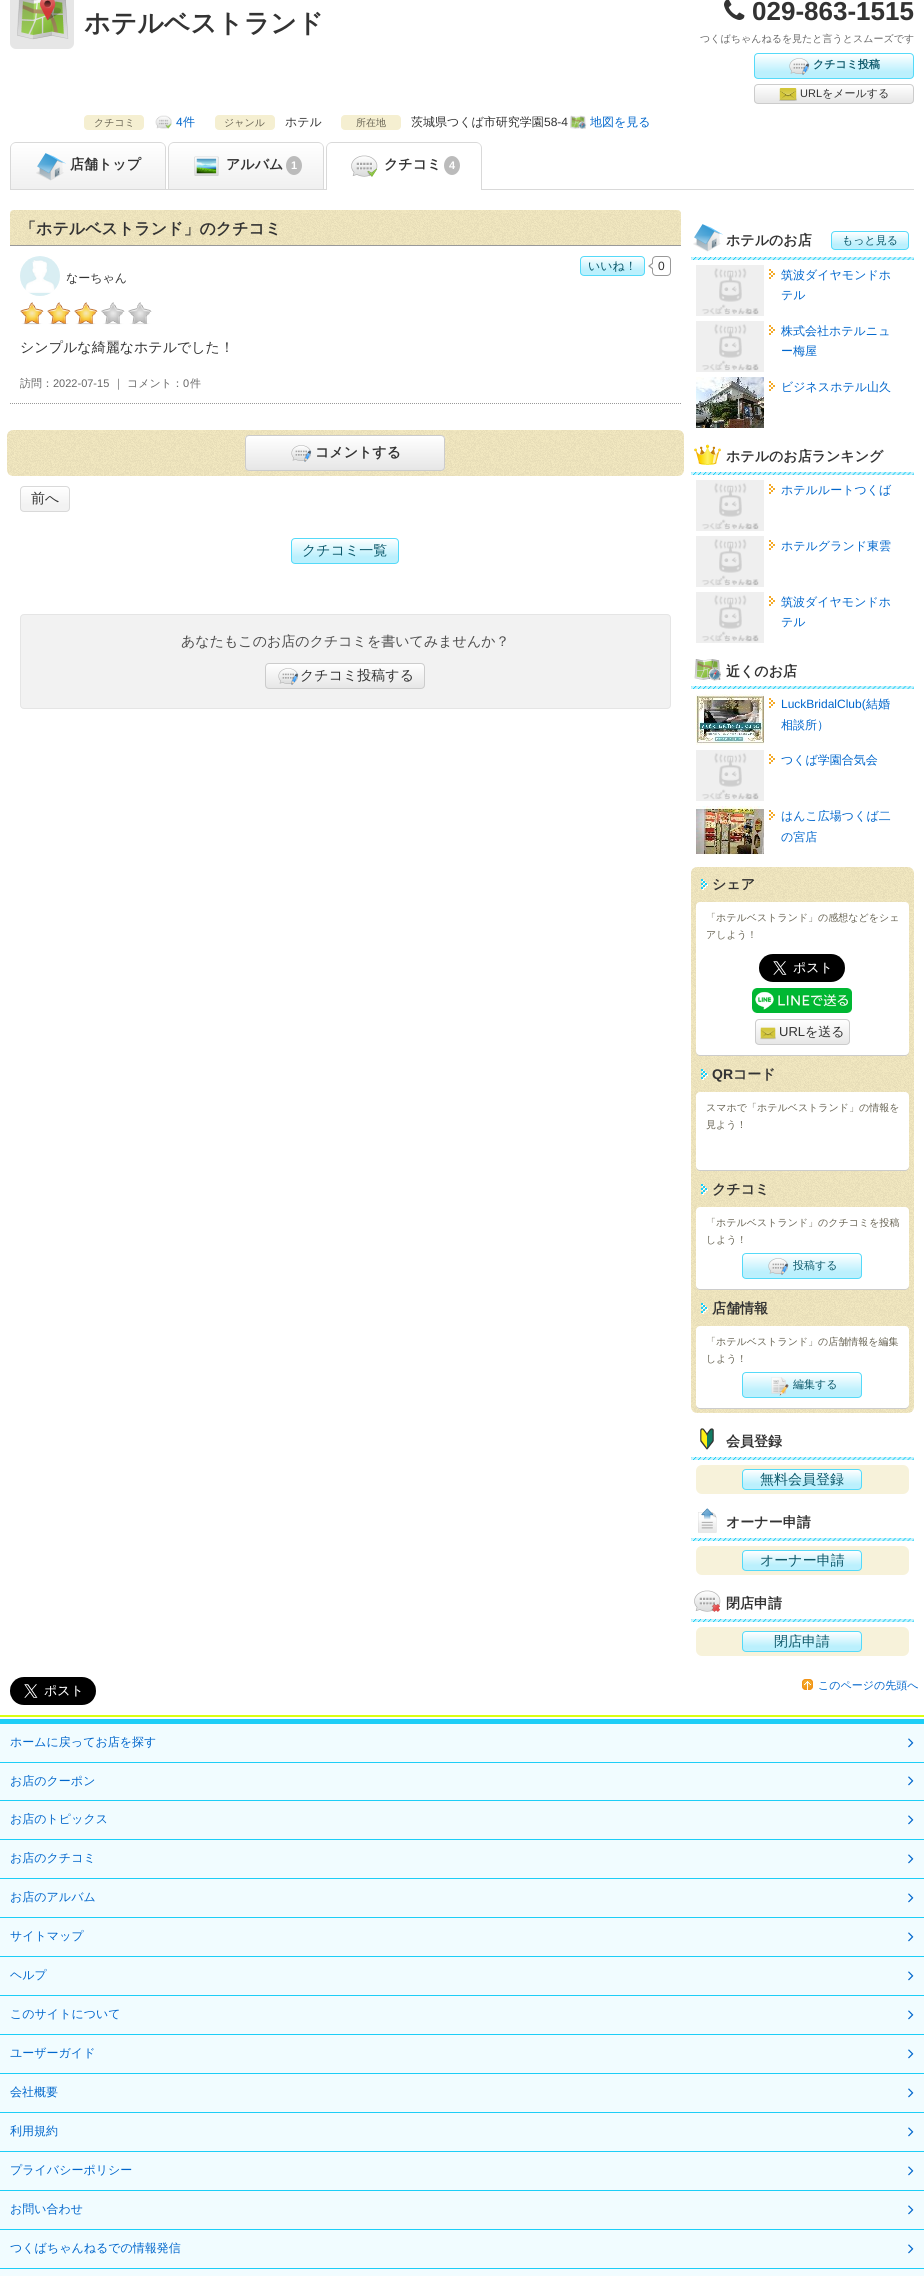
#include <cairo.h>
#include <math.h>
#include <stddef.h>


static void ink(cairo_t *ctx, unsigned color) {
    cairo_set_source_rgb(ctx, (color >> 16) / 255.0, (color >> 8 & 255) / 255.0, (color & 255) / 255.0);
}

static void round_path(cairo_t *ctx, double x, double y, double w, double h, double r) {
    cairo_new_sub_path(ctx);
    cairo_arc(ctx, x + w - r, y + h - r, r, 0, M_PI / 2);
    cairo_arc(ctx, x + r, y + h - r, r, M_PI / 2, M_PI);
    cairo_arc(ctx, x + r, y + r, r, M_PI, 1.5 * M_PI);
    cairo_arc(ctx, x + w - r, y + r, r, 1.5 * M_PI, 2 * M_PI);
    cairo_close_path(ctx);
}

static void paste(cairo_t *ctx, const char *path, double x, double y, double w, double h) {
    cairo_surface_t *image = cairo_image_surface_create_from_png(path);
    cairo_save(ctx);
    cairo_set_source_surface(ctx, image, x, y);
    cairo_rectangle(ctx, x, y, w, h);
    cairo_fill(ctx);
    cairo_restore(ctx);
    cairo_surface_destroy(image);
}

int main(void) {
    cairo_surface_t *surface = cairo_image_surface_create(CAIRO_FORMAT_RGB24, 924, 2276);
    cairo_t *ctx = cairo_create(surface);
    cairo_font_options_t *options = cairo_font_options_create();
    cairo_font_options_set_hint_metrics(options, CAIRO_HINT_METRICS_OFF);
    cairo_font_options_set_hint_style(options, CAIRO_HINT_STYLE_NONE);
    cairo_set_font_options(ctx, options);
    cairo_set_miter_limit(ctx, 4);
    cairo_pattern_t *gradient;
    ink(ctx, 0xFFFFFF);
    cairo_paint(ctx);
    ink(ctx, 0xE6E6E6);
    round_path(ctx, 10, -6, 64, 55, 6);
    cairo_fill(ctx);
    paste(ctx, "media/1.png", 17, 0, 52, 40);
    cairo_select_font_face(ctx, "WenQuanYi Zen Hei", CAIRO_FONT_SLANT_NORMAL, CAIRO_FONT_WEIGHT_BOLD);
    cairo_set_font_size(ctx, 26);
    ink(ctx, 0x333333);
    cairo_move_to(ctx, 84, 32);
    cairo_show_text(ctx, "ホテルベストランド");
    paste(ctx, "media/2.png", 724, 0, 21, 20);
    cairo_select_font_face(ctx, "Liberation Sans", CAIRO_FONT_SLANT_NORMAL, CAIRO_FONT_WEIGHT_BOLD);
    cairo_move_to(ctx, 752, 20);
    cairo_show_text(ctx, "029-863-1515");
    cairo_select_font_face(ctx, "WenQuanYi Zen Hei Medium", CAIRO_FONT_SLANT_NORMAL, CAIRO_FONT_WEIGHT_NORMAL);
    cairo_set_font_size(ctx, 10);
    ink(ctx, 0x666666);
    cairo_move_to(ctx, 700, 42);
    cairo_show_text(ctx, "つくばちゃんねるを見たと言うとスムーズです");
    cairo_save(ctx);
    round_path(ctx, 754, 53, 160, 26, 4);
    cairo_clip(ctx);
    gradient = cairo_pattern_create_linear(834, 54, 834, 78);
    cairo_pattern_add_color_stop_rgba(gradient, 0, 1, 1, 1, 1);
    cairo_pattern_add_color_stop_rgba(gradient, 0.75, 0.733, 0.941, 0.992, 1);
    cairo_pattern_add_color_stop_rgba(gradient, 1, 0.733, 0.941, 0.992, 1);
    cairo_set_source(ctx, gradient);
    cairo_pattern_destroy(gradient);
    cairo_rectangle(ctx, 754, 54, 160, 24);
    cairo_fill(ctx);
    cairo_restore(ctx);
    round_path(ctx, 754.5, 53.5, 159, 25, 3.5);
    ink(ctx, 0x55DAF9);
    cairo_set_line_width(ctx, 1);
    cairo_stroke(ctx);
    paste(ctx, "media/3.png", 789, 58, 21, 17);
    cairo_select_font_face(ctx, "WenQuanYi Zen Hei", CAIRO_FONT_SLANT_NORMAL, CAIRO_FONT_WEIGHT_BOLD);
    cairo_set_font_size(ctx, 11);
    ink(ctx, 0x0C586A);
    cairo_move_to(ctx, 813, 68);
    cairo_show_text(ctx, "クチコミ投稿");
    cairo_save(ctx);
    round_path(ctx, 754, 84, 160, 20, 4);
    cairo_clip(ctx);
    gradient = cairo_pattern_create_linear(834, 85, 834, 103);
    cairo_pattern_add_color_stop_rgba(gradient, 0, 1, 1, 1, 1);
    cairo_pattern_add_color_stop_rgba(gradient, 1, 0.902, 0.902, 0.902, 1);
    cairo_set_source(ctx, gradient);
    cairo_pattern_destroy(gradient);
    cairo_rectangle(ctx, 754, 85, 160, 18);
    cairo_fill(ctx);
    cairo_restore(ctx);
    round_path(ctx, 754.5, 84.5, 159, 19, 3.5);
    ink(ctx, 0xCCCCCC);
    cairo_stroke(ctx);
    paste(ctx, "media/4.png", 779, 88, 18, 13);
    cairo_select_font_face(ctx, "Liberation Sans", CAIRO_FONT_SLANT_NORMAL, CAIRO_FONT_WEIGHT_NORMAL);
    ink(ctx, 0x333333);
    cairo_move_to(ctx, 800, 97);
    cairo_show_text(ctx, "URL");
    cairo_select_font_face(ctx, "WenQuanYi Zen Hei Medium", CAIRO_FONT_SLANT_NORMAL, CAIRO_FONT_WEIGHT_NORMAL);
    cairo_move_to(ctx, 822, 97);
    cairo_show_text(ctx, "をメールする");
    ink(ctx, 0xF5EFD1);
    round_path(ctx, 84, 115, 60, 15, 4);
    cairo_fill(ctx);
    cairo_set_font_size(ctx, 10);
    ink(ctx, 0x666252);
    cairo_move_to(ctx, 94, 126);
    cairo_show_text(ctx, "クチコミ");
    paste(ctx, "media/5.png", 155, 115, 17, 14);
    cairo_select_font_face(ctx, "Liberation Sans", CAIRO_FONT_SLANT_NORMAL, CAIRO_FONT_WEIGHT_NORMAL);
    cairo_set_font_size(ctx, 12);
    ink(ctx, 0x0066CC);
    cairo_move_to(ctx, 176, 126);
    cairo_show_text(ctx, "4");
    cairo_select_font_face(ctx, "WenQuanYi Zen Hei Medium", CAIRO_FONT_SLANT_NORMAL, CAIRO_FONT_WEIGHT_NORMAL);
    cairo_move_to(ctx, 183, 126);
    cairo_show_text(ctx, "件");
    ink(ctx, 0xF5EFD1);
    round_path(ctx, 215, 115, 60, 15, 4);
    cairo_fill(ctx);
    cairo_set_font_size(ctx, 10);
    ink(ctx, 0x666252);
    cairo_move_to(ctx, 224, 126);
    cairo_show_text(ctx, "ジャンル");
    cairo_set_font_size(ctx, 12);
    ink(ctx, 0x333333);
    cairo_move_to(ctx, 285, 126);
    cairo_show_text(ctx, "ホテル");
    ink(ctx, 0xF5EFD1);
    round_path(ctx, 341, 115, 60, 15, 4);
    cairo_fill(ctx);
    cairo_set_font_size(ctx, 10);
    ink(ctx, 0x666252);
    cairo_move_to(ctx, 356, 126);
    cairo_show_text(ctx, "所在地");
    cairo_set_font_size(ctx, 12);
    ink(ctx, 0x333333);
    cairo_move_to(ctx, 411, 126);
    cairo_show_text(ctx, "茨城県つくば市研究学園");
    cairo_select_font_face(ctx, "Liberation Sans", CAIRO_FONT_SLANT_NORMAL, CAIRO_FONT_WEIGHT_NORMAL);
    cairo_move_to(ctx, 544, 126);
    cairo_show_text(ctx, "58-4");
    paste(ctx, "media/6.png", 570, 115, 17, 14);
    cairo_select_font_face(ctx, "WenQuanYi Zen Hei Medium", CAIRO_FONT_SLANT_NORMAL, CAIRO_FONT_WEIGHT_NORMAL);
    ink(ctx, 0x0066CC);
    cairo_move_to(ctx, 590, 126);
    cairo_show_text(ctx, "地図を見る");
    ink(ctx, 0xD9D9D9);
    cairo_rectangle(ctx, 10, 189, 904, 1);
    cairo_fill(ctx);
    cairo_save(ctx);
    cairo_new_path(ctx);
    cairo_move_to(ctx, 16, 142);
    cairo_line_to(ctx, 160, 142);
    cairo_curve_to(ctx, 163.5, 142, 166, 144.5, 166, 148);
    cairo_line_to(ctx, 166, 189);
    cairo_line_to(ctx, 10, 189);
    cairo_line_to(ctx, 10, 148);
    cairo_curve_to(ctx, 10, 144.5, 12.5, 142, 16, 142);
    cairo_close_path(ctx);
    cairo_clip(ctx);
    gradient = cairo_pattern_create_linear(88, 143, 88, 189);
    cairo_pattern_add_color_stop_rgba(gradient, 0, 1, 1, 1, 1);
    cairo_pattern_add_color_stop_rgba(gradient, 1, 0.941, 0.941, 0.941, 1);
    cairo_set_source(ctx, gradient);
    cairo_pattern_destroy(gradient);
    cairo_rectangle(ctx, 10, 143, 156, 46);
    cairo_fill(ctx);
    cairo_restore(ctx);
    cairo_set_fill_rule(ctx, CAIRO_FILL_RULE_EVEN_ODD);
    cairo_new_path(ctx);
    cairo_move_to(ctx, 16, 142);
    cairo_line_to(ctx, 160, 142);
    cairo_curve_to(ctx, 163, 142, 166, 145, 166, 148);
    cairo_line_to(ctx, 166, 189);
    cairo_line_to(ctx, 10, 189);
    cairo_line_to(ctx, 10, 148);
    cairo_curve_to(ctx, 10, 145, 13, 142, 16, 142);
    cairo_close_path(ctx);
    cairo_move_to(ctx, 16, 143);
    cairo_line_to(ctx, 160, 143);
    cairo_curve_to(ctx, 163, 143, 165, 145, 165, 148);
    cairo_line_to(ctx, 165, 189);
    cairo_line_to(ctx, 11, 189);
    cairo_line_to(ctx, 11, 148);
    cairo_curve_to(ctx, 11, 145, 13, 143, 16, 143);
    cairo_close_path(ctx);
    cairo_fill(ctx);
    paste(ctx, "media/7.png", 36, 153, 30, 28);
    cairo_select_font_face(ctx, "WenQuanYi Zen Hei", CAIRO_FONT_SLANT_NORMAL, CAIRO_FONT_WEIGHT_BOLD);
    cairo_set_font_size(ctx, 14);
    ink(ctx, 0x333333);
    cairo_move_to(ctx, 70, 169);
    cairo_show_text(ctx, "店舗トップ");
    cairo_save(ctx);
    cairo_set_fill_rule(ctx, CAIRO_FILL_RULE_WINDING);
    cairo_new_path(ctx);
    cairo_move_to(ctx, 174, 142);
    cairo_line_to(ctx, 318, 142);
    cairo_curve_to(ctx, 321.5, 142, 324, 144.5, 324, 148);
    cairo_line_to(ctx, 324, 189);
    cairo_line_to(ctx, 168, 189);
    cairo_line_to(ctx, 168, 148);
    cairo_curve_to(ctx, 168, 144.5, 170.5, 142, 174, 142);
    cairo_close_path(ctx);
    cairo_clip(ctx);
    gradient = cairo_pattern_create_linear(246, 143, 246, 189);
    cairo_pattern_add_color_stop_rgba(gradient, 0, 1, 1, 1, 1);
    cairo_pattern_add_color_stop_rgba(gradient, 1, 0.941, 0.941, 0.941, 1);
    cairo_set_source(ctx, gradient);
    cairo_pattern_destroy(gradient);
    cairo_rectangle(ctx, 168, 143, 156, 46);
    cairo_fill(ctx);
    cairo_restore(ctx);
    ink(ctx, 0xD9D9D9);
    cairo_new_path(ctx);
    cairo_move_to(ctx, 174, 142);
    cairo_line_to(ctx, 318, 142);
    cairo_curve_to(ctx, 321, 142, 324, 145, 324, 148);
    cairo_line_to(ctx, 324, 189);
    cairo_line_to(ctx, 168, 189);
    cairo_line_to(ctx, 168, 148);
    cairo_curve_to(ctx, 168, 145, 171, 142, 174, 142);
    cairo_close_path(ctx);
    cairo_move_to(ctx, 174, 143);
    cairo_line_to(ctx, 318, 143);
    cairo_curve_to(ctx, 321, 143, 323, 145, 323, 148);
    cairo_line_to(ctx, 323, 189);
    cairo_line_to(ctx, 169, 189);
    cairo_line_to(ctx, 169, 148);
    cairo_curve_to(ctx, 169, 145, 171, 143, 174, 143);
    cairo_close_path(ctx);
    cairo_fill(ctx);
    paste(ctx, "media/8.png", 194, 156, 25, 20);
    ink(ctx, 0x333333);
    cairo_move_to(ctx, 226, 169);
    cairo_show_text(ctx, "アルバム");
    ink(ctx, 0xBBBBBB);
    cairo_new_path(ctx);
    cairo_move_to(ctx, 294, 156);
    cairo_curve_to(ctx, 298.5, 156, 302, 160.5, 302, 165.5);
    cairo_curve_to(ctx, 302, 170.5, 298.5, 175, 294, 175);
    cairo_curve_to(ctx, 289.5, 175, 286, 170.5, 286, 165.5);
    cairo_curve_to(ctx, 286, 160.5, 289.5, 156, 294, 156);
    cairo_close_path(ctx);
    cairo_fill(ctx);
    cairo_select_font_face(ctx, "Liberation Sans", CAIRO_FONT_SLANT_NORMAL, CAIRO_FONT_WEIGHT_BOLD);
    cairo_set_font_size(ctx, 11);
    ink(ctx, 0xFFFFFF);
    cairo_move_to(ctx, 291, 169);
    cairo_show_text(ctx, "1");
    cairo_new_path(ctx);
    cairo_move_to(ctx, 332, 142);
    cairo_line_to(ctx, 476, 142);
    cairo_curve_to(ctx, 479.5, 142, 482, 144.5, 482, 148);
    cairo_line_to(ctx, 482, 190);
    cairo_line_to(ctx, 326, 190);
    cairo_line_to(ctx, 326, 148);
    cairo_curve_to(ctx, 326, 144.5, 328.5, 142, 332, 142);
    cairo_close_path(ctx);
    cairo_fill(ctx);
    ink(ctx, 0xD9D9D9);
    cairo_new_path(ctx);
    cairo_move_to(ctx, 332, 142);
    cairo_line_to(ctx, 476, 142);
    cairo_curve_to(ctx, 479, 142, 482, 145, 482, 148);
    cairo_line_to(ctx, 482, 190);
    cairo_line_to(ctx, 326, 190);
    cairo_line_to(ctx, 326, 148);
    cairo_curve_to(ctx, 326, 145, 329, 142, 332, 142);
    cairo_close_path(ctx);
    cairo_move_to(ctx, 332, 143);
    cairo_line_to(ctx, 476, 143);
    cairo_curve_to(ctx, 479, 143, 481, 145, 481, 148);
    cairo_line_to(ctx, 481, 190);
    cairo_line_to(ctx, 327, 190);
    cairo_line_to(ctx, 327, 148);
    cairo_curve_to(ctx, 327, 145, 329, 143, 332, 143);
    cairo_close_path(ctx);
    cairo_fill(ctx);
    paste(ctx, "media/9.png", 351, 155, 27, 22);
    cairo_select_font_face(ctx, "WenQuanYi Zen Hei", CAIRO_FONT_SLANT_NORMAL, CAIRO_FONT_WEIGHT_BOLD);
    cairo_set_font_size(ctx, 14);
    ink(ctx, 0x333333);
    cairo_move_to(ctx, 384, 169);
    cairo_show_text(ctx, "クチコミ");
    ink(ctx, 0xBBBBBB);
    cairo_new_path(ctx);
    cairo_move_to(ctx, 452, 156);
    cairo_curve_to(ctx, 456.5, 156, 460, 160.5, 460, 165.5);
    cairo_curve_to(ctx, 460, 170.5, 456.5, 175, 452, 175);
    cairo_curve_to(ctx, 447.5, 175, 444, 170.5, 444, 165.5);
    cairo_curve_to(ctx, 444, 160.5, 447.5, 156, 452, 156);
    cairo_close_path(ctx);
    cairo_fill(ctx);
    cairo_select_font_face(ctx, "Liberation Sans", CAIRO_FONT_SLANT_NORMAL, CAIRO_FONT_WEIGHT_BOLD);
    cairo_set_font_size(ctx, 11);
    ink(ctx, 0xFFFFFF);
    cairo_move_to(ctx, 449, 169);
    cairo_show_text(ctx, "4");
    paste(ctx, "media/10.png", 10, 210, 671, 35);
    ink(ctx, 0x999999);
    cairo_rectangle(ctx, 10, 245, 671, 1);
    cairo_fill(ctx);
    cairo_select_font_face(ctx, "WenQuanYi Zen Hei", CAIRO_FONT_SLANT_NORMAL, CAIRO_FONT_WEIGHT_BOLD);
    cairo_set_font_size(ctx, 16);
    ink(ctx, 0x333333);
    cairo_move_to(ctx, 20, 234);
    cairo_show_text(ctx, "「ホテルベストランド」のクチコミ");
    cairo_new_path(ctx);
    cairo_move_to(ctx, 10, 403.5);
    cairo_line_to(ctx, 681, 403.5);
    ink(ctx, 0x999999);
    cairo_set_dash(ctx, (double[]){1, 1}, 2, 0);
    cairo_stroke(ctx);
    cairo_save(ctx);
    cairo_set_fill_rule(ctx, CAIRO_FILL_RULE_WINDING);
    round_path(ctx, 580, 256, 65, 20, 4);
    cairo_clip(ctx);
    gradient = cairo_pattern_create_linear(613, 257, 613, 275);
    cairo_pattern_add_color_stop_rgba(gradient, 0, 1, 1, 1, 1);
    cairo_pattern_add_color_stop_rgba(gradient, 0.75, 0.733, 0.941, 0.992, 1);
    cairo_pattern_add_color_stop_rgba(gradient, 1, 0.733, 0.941, 0.992, 1);
    cairo_set_source(ctx, gradient);
    cairo_pattern_destroy(gradient);
    cairo_rectangle(ctx, 580, 257, 65, 18);
    cairo_fill(ctx);
    cairo_restore(ctx);
    round_path(ctx, 580.5, 256.5, 64, 19, 3.5);
    ink(ctx, 0x55DAF9);
    cairo_set_dash(ctx, NULL, 0, 0);
    cairo_stroke(ctx);
    cairo_select_font_face(ctx, "WenQuanYi Zen Hei Medium", CAIRO_FONT_SLANT_NORMAL, CAIRO_FONT_WEIGHT_NORMAL);
    cairo_set_font_size(ctx, 12);
    ink(ctx, 0x0C586A);
    cairo_move_to(ctx, 588, 270);
    cairo_show_text(ctx, "いいね！");
    round_path(ctx, 652.5, 256.5, 18, 19, 3.5);
    ink(ctx, 0x999999);
    cairo_stroke(ctx);
    cairo_set_fill_rule(ctx, CAIRO_FILL_RULE_WINDING);
    cairo_new_path(ctx);
    cairo_move_to(ctx, 652, 263);
    cairo_line_to(ctx, 652, 269);
    cairo_line_to(ctx, 648, 266);
    cairo_close_path(ctx);
    cairo_fill(ctx);
    cairo_select_font_face(ctx, "Liberation Sans", CAIRO_FONT_SLANT_NORMAL, CAIRO_FONT_WEIGHT_NORMAL);
    ink(ctx, 0x333333);
    cairo_move_to(ctx, 658, 270);
    cairo_show_text(ctx, "0");
    ink(ctx, 0xFFFFFF);
    cairo_new_path(ctx);
    cairo_move_to(ctx, 654, 263);
    cairo_line_to(ctx, 654, 269);
    cairo_line_to(ctx, 650, 266);
    cairo_close_path(ctx);
    cairo_fill(ctx);
    paste(ctx, "media/11.png", 20, 256, 40, 40);
    cairo_select_font_face(ctx, "WenQuanYi Zen Hei Medium", CAIRO_FONT_SLANT_NORMAL, CAIRO_FONT_WEIGHT_NORMAL);
    ink(ctx, 0x333333);
    cairo_move_to(ctx, 66, 282);
    cairo_show_text(ctx, "なーちゃん");
    paste(ctx, "media/12.png", 20, 302, 132, 23);
    cairo_set_font_size(ctx, 14);
    cairo_move_to(ctx, 20, 352);
    cairo_show_text(ctx, "シンプルな綺麗なホテルでした！");
    cairo_set_font_size(ctx, 11);
    ink(ctx, 0x666666);
    cairo_move_to(ctx, 20, 387);
    cairo_show_text(ctx, "訪問：");
    cairo_select_font_face(ctx, "Liberation Sans", CAIRO_FONT_SLANT_NORMAL, CAIRO_FONT_WEIGHT_NORMAL);
    cairo_move_to(ctx, 53, 387);
    cairo_show_text(ctx, "2022-07-15");
    cairo_select_font_face(ctx, "WenQuanYi Zen Hei Medium", CAIRO_FONT_SLANT_NORMAL, CAIRO_FONT_WEIGHT_NORMAL);
    cairo_move_to(ctx, 113, 387);
    cairo_show_text(ctx, "｜ コメント：");
    cairo_select_font_face(ctx, "Liberation Sans", CAIRO_FONT_SLANT_NORMAL, CAIRO_FONT_WEIGHT_NORMAL);
    cairo_move_to(ctx, 183, 387);
    cairo_show_text(ctx, "0");
    cairo_select_font_face(ctx, "WenQuanYi Zen Hei Medium", CAIRO_FONT_SLANT_NORMAL, CAIRO_FONT_WEIGHT_NORMAL);
    cairo_move_to(ctx, 190, 387);
    cairo_show_text(ctx, "件");
    paste(ctx, "media/13.png", 7, 430, 677, 46);
    cairo_save(ctx);
    round_path(ctx, 245, 435, 200, 36, 4);
    cairo_clip(ctx);
    gradient = cairo_pattern_create_linear(345, 436, 345, 470);
    cairo_pattern_add_color_stop_rgba(gradient, 0, 1, 1, 1, 1);
    cairo_pattern_add_color_stop_rgba(gradient, 1, 0.902, 0.902, 0.902, 1);
    cairo_set_source(ctx, gradient);
    cairo_pattern_destroy(gradient);
    cairo_rectangle(ctx, 245, 436, 200, 34);
    cairo_fill(ctx);
    cairo_restore(ctx);
    round_path(ctx, 245.5, 435.5, 199, 35, 3.5);
    ink(ctx, 0xCCCCCC);
    cairo_stroke(ctx);
    paste(ctx, "media/14.png", 291, 445, 21, 17);
    cairo_select_font_face(ctx, "WenQuanYi Zen Hei", CAIRO_FONT_SLANT_NORMAL, CAIRO_FONT_WEIGHT_BOLD);
    cairo_set_font_size(ctx, 14);
    ink(ctx, 0x333333);
    cairo_move_to(ctx, 315, 457);
    cairo_show_text(ctx, "コメントする");
    cairo_save(ctx);
    round_path(ctx, 20, 486, 50, 26, 4);
    cairo_clip(ctx);
    gradient = cairo_pattern_create_linear(45, 487, 45, 511);
    cairo_pattern_add_color_stop_rgba(gradient, 0, 1, 1, 1, 1);
    cairo_pattern_add_color_stop_rgba(gradient, 0.75, 0.949, 0.949, 0.949, 1);
    cairo_pattern_add_color_stop_rgba(gradient, 1, 0.949, 0.949, 0.949, 1);
    cairo_set_source(ctx, gradient);
    cairo_pattern_destroy(gradient);
    cairo_rectangle(ctx, 20, 487, 50, 24);
    cairo_fill(ctx);
    cairo_restore(ctx);
    round_path(ctx, 20.5, 486.5, 49, 25, 3.5);
    ink(ctx, 0xD9D9D9);
    cairo_stroke(ctx);
    cairo_select_font_face(ctx, "WenQuanYi Zen Hei Medium", CAIRO_FONT_SLANT_NORMAL, CAIRO_FONT_WEIGHT_NORMAL);
    ink(ctx, 0x333333);
    cairo_move_to(ctx, 31, 503);
    cairo_show_text(ctx, "前へ");
    cairo_save(ctx);
    round_path(ctx, 291, 538, 108, 26, 4);
    cairo_clip(ctx);
    gradient = cairo_pattern_create_linear(345, 539, 345, 563);
    cairo_pattern_add_color_stop_rgba(gradient, 0, 1, 1, 1, 1);
    cairo_pattern_add_color_stop_rgba(gradient, 0.75, 0.733, 0.941, 0.992, 1);
    cairo_pattern_add_color_stop_rgba(gradient, 1, 0.733, 0.941, 0.992, 1);
    cairo_set_source(ctx, gradient);
    cairo_pattern_destroy(gradient);
    cairo_rectangle(ctx, 291, 539, 108, 24);
    cairo_fill(ctx);
    cairo_restore(ctx);
    round_path(ctx, 291.5, 538.5, 107, 25, 3.5);
    ink(ctx, 0x55DAF9);
    cairo_stroke(ctx);
    ink(ctx, 0x0C586A);
    cairo_move_to(ctx, 302, 555);
    cairo_show_text(ctx, "クチコミ一覧");
    ink(ctx, 0xF2F2F2);
    round_path(ctx, 20.5, 614.5, 650, 94, 3.5);
    cairo_fill_preserve(ctx);
    ink(ctx, 0xE5E5E5);
    cairo_stroke(ctx);
    ink(ctx, 0x4C4C4C);
    cairo_move_to(ctx, 181, 646);
    cairo_show_text(ctx, "あなたもこのお店のクチコミを書いてみませんか？");
    cairo_save(ctx);
    round_path(ctx, 265, 663, 160, 26, 4);
    cairo_clip(ctx);
    gradient = cairo_pattern_create_linear(345, 664, 345, 688);
    cairo_pattern_add_color_stop_rgba(gradient, 0, 1, 1, 1, 1);
    cairo_pattern_add_color_stop_rgba(gradient, 1, 0.902, 0.902, 0.902, 1);
    cairo_set_source(ctx, gradient);
    cairo_pattern_destroy(gradient);
    cairo_rectangle(ctx, 265, 664, 160, 24);
    cairo_fill(ctx);
    cairo_restore(ctx);
    round_path(ctx, 265.5, 663.5, 159, 25, 3.5);
    ink(ctx, 0xCCCCCC);
    cairo_stroke(ctx);
    paste(ctx, "media/15.png", 278, 668, 21, 17);
    ink(ctx, 0x333333);
    cairo_move_to(ctx, 300, 680);
    cairo_show_text(ctx, "クチコミ投稿する");
    paste(ctx, "media/16.png", 691, 257, 223, 3);
    paste(ctx, "media/17.png", 693, 224, 30, 28);
    cairo_select_font_face(ctx, "WenQuanYi Zen Hei", CAIRO_FONT_SLANT_NORMAL, CAIRO_FONT_WEIGHT_BOLD);
    cairo_move_to(ctx, 726, 245);
    cairo_show_text(ctx, "ホテルのお店");
    cairo_save(ctx);
    round_path(ctx, 831, 231, 78, 19, 4);
    cairo_clip(ctx);
    gradient = cairo_pattern_create_linear(870, 232, 870, 249);
    cairo_pattern_add_color_stop_rgba(gradient, 0, 1, 1, 1, 1);
    cairo_pattern_add_color_stop_rgba(gradient, 0.75, 0.733, 0.941, 0.992, 1);
    cairo_pattern_add_color_stop_rgba(gradient, 1, 0.733, 0.941, 0.992, 1);
    cairo_set_source(ctx, gradient);
    cairo_pattern_destroy(gradient);
    cairo_rectangle(ctx, 831, 232, 78, 17);
    cairo_fill(ctx);
    cairo_restore(ctx);
    round_path(ctx, 831.5, 231.5, 77, 18, 3.5);
    ink(ctx, 0x55DAF9);
    cairo_stroke(ctx);
    cairo_select_font_face(ctx, "WenQuanYi Zen Hei Medium", CAIRO_FONT_SLANT_NORMAL, CAIRO_FONT_WEIGHT_NORMAL);
    cairo_set_font_size(ctx, 11);
    ink(ctx, 0x0C586A);
    cairo_move_to(ctx, 842, 244);
    cairo_show_text(ctx, "もっと見る");
    paste(ctx, "media/18.png", 696, 265, 68, 51);
    paste(ctx, "media/19.png", 769, 269, 6, 10);
    cairo_set_font_size(ctx, 12);
    ink(ctx, 0x0066CC);
    cairo_move_to(ctx, 781, 279);
    cairo_show_text(ctx, "筑波ダイヤモンドホ");
    cairo_move_to(ctx, 781, 299);
    cairo_show_text(ctx, "テル");
    paste(ctx, "media/18.png", 696, 321, 68, 51);
    paste(ctx, "media/19.png", 769, 325, 6, 10);
    cairo_move_to(ctx, 781, 335);
    cairo_show_text(ctx, "株式会社ホテルニュ");
    cairo_move_to(ctx, 781, 355);
    cairo_show_text(ctx, "ー梅屋");
    paste(ctx, "media/20.png", 696, 377, 68, 51);
    paste(ctx, "media/19.png", 769, 381, 6, 10);
    cairo_move_to(ctx, 781, 391);
    cairo_show_text(ctx, "ビジネスホテル山久");
    paste(ctx, "media/16.png", 691, 472, 223, 3);
    paste(ctx, "media/21.png", 694, 444, 27, 21);
    cairo_select_font_face(ctx, "WenQuanYi Zen Hei", CAIRO_FONT_SLANT_NORMAL, CAIRO_FONT_WEIGHT_BOLD);
    cairo_set_font_size(ctx, 14);
    ink(ctx, 0x333333);
    cairo_move_to(ctx, 726, 461);
    cairo_show_text(ctx, "ホテルのお店ランキング");
    paste(ctx, "media/22.png", 696, 480, 68, 51);
    paste(ctx, "media/19.png", 769, 484, 6, 10);
    cairo_select_font_face(ctx, "WenQuanYi Zen Hei Medium", CAIRO_FONT_SLANT_NORMAL, CAIRO_FONT_WEIGHT_NORMAL);
    cairo_set_font_size(ctx, 12);
    ink(ctx, 0x0066CC);
    cairo_move_to(ctx, 781, 494);
    cairo_show_text(ctx, "ホテルルートつくば");
    paste(ctx, "media/18.png", 696, 536, 68, 51);
    paste(ctx, "media/19.png", 769, 540, 6, 10);
    cairo_move_to(ctx, 781, 550);
    cairo_show_text(ctx, "ホテルグランド東雲");
    paste(ctx, "media/22.png", 696, 592, 68, 51);
    paste(ctx, "media/19.png", 769, 596, 6, 10);
    cairo_move_to(ctx, 781, 606);
    cairo_show_text(ctx, "筑波ダイヤモンドホ");
    cairo_move_to(ctx, 781, 626);
    cairo_show_text(ctx, "テル");
    paste(ctx, "media/16.png", 691, 686, 223, 3);
    paste(ctx, "media/23.png", 694, 659, 27, 22);
    cairo_select_font_face(ctx, "WenQuanYi Zen Hei", CAIRO_FONT_SLANT_NORMAL, CAIRO_FONT_WEIGHT_BOLD);
    cairo_set_font_size(ctx, 14);
    ink(ctx, 0x333333);
    cairo_move_to(ctx, 726, 676);
    cairo_show_text(ctx, "近くのお店");
    paste(ctx, "media/24.png", 696, 694, 68, 51);
    paste(ctx, "media/19.png", 769, 698, 6, 10);
    cairo_select_font_face(ctx, "Liberation Sans", CAIRO_FONT_SLANT_NORMAL, CAIRO_FONT_WEIGHT_NORMAL);
    cairo_set_font_size(ctx, 12);
    ink(ctx, 0x0066CC);
    cairo_move_to(ctx, 781, 708);
    cairo_show_text(ctx, "LuckBridalClub(");
    cairo_select_font_face(ctx, "WenQuanYi Zen Hei Medium", CAIRO_FONT_SLANT_NORMAL, CAIRO_FONT_WEIGHT_NORMAL);
    cairo_move_to(ctx, 866, 708);
    cairo_show_text(ctx, "結婚");
    cairo_move_to(ctx, 781, 729);
    cairo_show_text(ctx, "相談所）");
    paste(ctx, "media/18.png", 696, 750, 68, 51);
    paste(ctx, "media/19.png", 769, 754, 6, 10);
    cairo_move_to(ctx, 781, 764);
    cairo_show_text(ctx, "つくば学園合気会");
    paste(ctx, "media/25.png", 696, 806, 68, 49);
    paste(ctx, "media/19.png", 769, 810, 6, 10);
    cairo_move_to(ctx, 781, 820);
    cairo_show_text(ctx, "はんこ広場つくば二");
    cairo_move_to(ctx, 781, 841);
    cairo_show_text(ctx, "の宮店");
    paste(ctx, "media/26.png", 691, 867, 223, 546);
    paste(ctx, "media/27.png", 701, 879, 7, 11);
    cairo_select_font_face(ctx, "WenQuanYi Zen Hei", CAIRO_FONT_SLANT_NORMAL, CAIRO_FONT_WEIGHT_BOLD);
    cairo_set_font_size(ctx, 14);
    ink(ctx, 0x333333);
    cairo_move_to(ctx, 712, 889);
    cairo_show_text(ctx, "シェア");
    ink(ctx, 0xCCCCCC);
    cairo_new_path(ctx);
    cairo_move_to(ctx, 696, 1051);
    cairo_line_to(ctx, 696, 1052);
    cairo_curve_to(ctx, 696, 1054, 698, 1056, 700, 1056);
    cairo_line_to(ctx, 905, 1056);
    cairo_curve_to(ctx, 907, 1056, 909, 1054, 909, 1052);
    cairo_line_to(ctx, 909, 1051);
    cairo_curve_to(ctx, 909, 1053, 907, 1055, 905, 1055);
    cairo_line_to(ctx, 700, 1055);
    cairo_curve_to(ctx, 698, 1055, 696, 1053, 696, 1051);
    cairo_close_path(ctx);
    cairo_fill(ctx);
    ink(ctx, 0xFFFFFF);
    round_path(ctx, 696, 902, 213, 153, 4);
    cairo_fill(ctx);
    cairo_select_font_face(ctx, "WenQuanYi Zen Hei Medium", CAIRO_FONT_SLANT_NORMAL, CAIRO_FONT_WEIGHT_NORMAL);
    cairo_set_font_size(ctx, 10);
    ink(ctx, 0x666252);
    cairo_move_to(ctx, 706, 921);
    cairo_show_text(ctx, "「ホテルベストランド」の感想などをシェ");
    cairo_move_to(ctx, 706, 938);
    cairo_show_text(ctx, "アしよう！");
    paste(ctx, "media/28.png", 759, 954, 86, 28);
    paste(ctx, "media/29.png", 752, 988, 100, 25);
    cairo_save(ctx);
    round_path(ctx, 755, 1019, 95, 26, 4);
    cairo_clip(ctx);
    gradient = cairo_pattern_create_linear(803, 1020, 803, 1044);
    cairo_pattern_add_color_stop_rgba(gradient, 0, 1, 1, 1, 1);
    cairo_pattern_add_color_stop_rgba(gradient, 1, 0.902, 0.902, 0.902, 1);
    cairo_set_source(ctx, gradient);
    cairo_pattern_destroy(gradient);
    cairo_rectangle(ctx, 755, 1020, 95, 24);
    cairo_fill(ctx);
    cairo_restore(ctx);
    round_path(ctx, 755.5, 1019.5, 94, 25, 3.5);
    ink(ctx, 0xCCCCCC);
    cairo_stroke(ctx);
    paste(ctx, "media/30.png", 760, 1027, 16, 13);
    cairo_select_font_face(ctx, "Liberation Sans", CAIRO_FONT_SLANT_NORMAL, CAIRO_FONT_WEIGHT_NORMAL);
    cairo_set_font_size(ctx, 13);
    ink(ctx, 0x333333);
    cairo_move_to(ctx, 779, 1036);
    cairo_show_text(ctx, "URL");
    cairo_select_font_face(ctx, "WenQuanYi Zen Hei Medium", CAIRO_FONT_SLANT_NORMAL, CAIRO_FONT_WEIGHT_NORMAL);
    cairo_move_to(ctx, 805, 1036);
    cairo_show_text(ctx, "を送る");
    paste(ctx, "media/31.png", 701, 1069, 7, 11);
    cairo_select_font_face(ctx, "Liberation Sans", CAIRO_FONT_SLANT_NORMAL, CAIRO_FONT_WEIGHT_BOLD);
    cairo_set_font_size(ctx, 14);
    cairo_move_to(ctx, 712, 1079);
    cairo_show_text(ctx, "QR");
    cairo_select_font_face(ctx, "WenQuanYi Zen Hei", CAIRO_FONT_SLANT_NORMAL, CAIRO_FONT_WEIGHT_BOLD);
    cairo_move_to(ctx, 733, 1079);
    cairo_show_text(ctx, "コード");
    ink(ctx, 0xCCCCCC);
    cairo_new_path(ctx);
    cairo_move_to(ctx, 696, 1166);
    cairo_line_to(ctx, 696, 1167);
    cairo_curve_to(ctx, 696, 1169, 698, 1171, 700, 1171);
    cairo_line_to(ctx, 905, 1171);
    cairo_curve_to(ctx, 907, 1171, 909, 1169, 909, 1167);
    cairo_line_to(ctx, 909, 1166);
    cairo_curve_to(ctx, 909, 1168, 907, 1170, 905, 1170);
    cairo_line_to(ctx, 700, 1170);
    cairo_curve_to(ctx, 698, 1170, 696, 1168, 696, 1166);
    cairo_close_path(ctx);
    cairo_fill(ctx);
    ink(ctx, 0xFFFFFF);
    round_path(ctx, 696, 1092, 213, 78, 4);
    cairo_fill(ctx);
    cairo_select_font_face(ctx, "WenQuanYi Zen Hei Medium", CAIRO_FONT_SLANT_NORMAL, CAIRO_FONT_WEIGHT_NORMAL);
    cairo_set_font_size(ctx, 10);
    ink(ctx, 0x666252);
    cairo_move_to(ctx, 706, 1111);
    cairo_show_text(ctx, "スマホで「ホテルベストランド」の情報を");
    cairo_move_to(ctx, 706, 1128);
    cairo_show_text(ctx, "見よう！");
    paste(ctx, "media/32.png", 701, 1184, 7, 11);
    cairo_select_font_face(ctx, "WenQuanYi Zen Hei", CAIRO_FONT_SLANT_NORMAL, CAIRO_FONT_WEIGHT_BOLD);
    cairo_set_font_size(ctx, 14);
    ink(ctx, 0x333333);
    cairo_move_to(ctx, 712, 1194);
    cairo_show_text(ctx, "クチコミ");
    ink(ctx, 0xCCCCCC);
    cairo_new_path(ctx);
    cairo_move_to(ctx, 696, 1285);
    cairo_line_to(ctx, 696, 1286);
    cairo_curve_to(ctx, 696, 1288, 698, 1290, 700, 1290);
    cairo_line_to(ctx, 905, 1290);
    cairo_curve_to(ctx, 907, 1290, 909, 1288, 909, 1286);
    cairo_line_to(ctx, 909, 1285);
    cairo_curve_to(ctx, 909, 1287, 907, 1289, 905, 1289);
    cairo_line_to(ctx, 700, 1289);
    cairo_curve_to(ctx, 698, 1289, 696, 1287, 696, 1285);
    cairo_close_path(ctx);
    cairo_fill(ctx);
    ink(ctx, 0xFFFFFF);
    round_path(ctx, 696, 1207, 213, 82, 4);
    cairo_fill(ctx);
    cairo_select_font_face(ctx, "WenQuanYi Zen Hei Medium", CAIRO_FONT_SLANT_NORMAL, CAIRO_FONT_WEIGHT_NORMAL);
    cairo_set_font_size(ctx, 10);
    ink(ctx, 0x666252);
    cairo_move_to(ctx, 706, 1226);
    cairo_show_text(ctx, "「ホテルベストランド」のクチコミを投稿");
    cairo_move_to(ctx, 706, 1243);
    cairo_show_text(ctx, "しよう！");
    cairo_save(ctx);
    round_path(ctx, 742, 1253, 120, 26, 4);
    cairo_clip(ctx);
    gradient = cairo_pattern_create_linear(802, 1254, 802, 1278);
    cairo_pattern_add_color_stop_rgba(gradient, 0, 1, 1, 1, 1);
    cairo_pattern_add_color_stop_rgba(gradient, 0.75, 0.733, 0.941, 0.992, 1);
    cairo_pattern_add_color_stop_rgba(gradient, 1, 0.733, 0.941, 0.992, 1);
    cairo_set_source(ctx, gradient);
    cairo_pattern_destroy(gradient);
    cairo_rectangle(ctx, 742, 1254, 120, 24);
    cairo_fill(ctx);
    cairo_restore(ctx);
    round_path(ctx, 742.5, 1253.5, 119, 25, 3.5);
    ink(ctx, 0x55DAF9);
    cairo_stroke(ctx);
    paste(ctx, "media/3.png", 768, 1258, 21, 17);
    cairo_set_font_size(ctx, 11);
    ink(ctx, 0x0C586A);
    cairo_move_to(ctx, 793, 1269);
    cairo_show_text(ctx, "投稿する");
    paste(ctx, "media/33.png", 701, 1303, 7, 11);
    cairo_select_font_face(ctx, "WenQuanYi Zen Hei", CAIRO_FONT_SLANT_NORMAL, CAIRO_FONT_WEIGHT_BOLD);
    cairo_set_font_size(ctx, 14);
    ink(ctx, 0x333333);
    cairo_move_to(ctx, 712, 1313);
    cairo_show_text(ctx, "店舗情報");
    ink(ctx, 0xCCCCCC);
    cairo_new_path(ctx);
    cairo_move_to(ctx, 696, 1404);
    cairo_line_to(ctx, 696, 1405);
    cairo_curve_to(ctx, 696, 1407, 698, 1409, 700, 1409);
    cairo_line_to(ctx, 905, 1409);
    cairo_curve_to(ctx, 907, 1409, 909, 1407, 909, 1405);
    cairo_line_to(ctx, 909, 1404);
    cairo_curve_to(ctx, 909, 1406, 907, 1408, 905, 1408);
    cairo_line_to(ctx, 700, 1408);
    cairo_curve_to(ctx, 698, 1408, 696, 1406, 696, 1404);
    cairo_close_path(ctx);
    cairo_fill(ctx);
    ink(ctx, 0xFFFFFF);
    round_path(ctx, 696, 1326, 213, 82, 4);
    cairo_fill(ctx);
    cairo_select_font_face(ctx, "WenQuanYi Zen Hei Medium", CAIRO_FONT_SLANT_NORMAL, CAIRO_FONT_WEIGHT_NORMAL);
    cairo_set_font_size(ctx, 10);
    ink(ctx, 0x666252);
    cairo_move_to(ctx, 706, 1345);
    cairo_show_text(ctx, "「ホテルベストランド」の店舗情報を編集");
    cairo_move_to(ctx, 706, 1362);
    cairo_show_text(ctx, "しよう！");
    cairo_save(ctx);
    round_path(ctx, 742, 1372, 120, 26, 4);
    cairo_clip(ctx);
    gradient = cairo_pattern_create_linear(802, 1373, 802, 1397);
    cairo_pattern_add_color_stop_rgba(gradient, 0, 1, 1, 1, 1);
    cairo_pattern_add_color_stop_rgba(gradient, 0.75, 0.733, 0.941, 0.992, 1);
    cairo_pattern_add_color_stop_rgba(gradient, 1, 0.733, 0.941, 0.992, 1);
    cairo_set_source(ctx, gradient);
    cairo_pattern_destroy(gradient);
    cairo_rectangle(ctx, 742, 1373, 120, 24);
    cairo_fill(ctx);
    cairo_restore(ctx);
    round_path(ctx, 742.5, 1372.5, 119, 25, 3.5);
    ink(ctx, 0x55DAF9);
    cairo_stroke(ctx);
    paste(ctx, "media/34.png", 771, 1377, 18, 19);
    cairo_set_font_size(ctx, 11);
    ink(ctx, 0x0C586A);
    cairo_move_to(ctx, 793, 1388);
    cairo_show_text(ctx, "編集する");
    paste(ctx, "media/16.png", 691, 1457, 223, 3);
    paste(ctx, "media/35.png", 700, 1428, 14, 22);
    cairo_select_font_face(ctx, "WenQuanYi Zen Hei", CAIRO_FONT_SLANT_NORMAL, CAIRO_FONT_WEIGHT_BOLD);
    cairo_set_font_size(ctx, 14);
    ink(ctx, 0x333333);
    cairo_move_to(ctx, 726, 1446);
    cairo_show_text(ctx, "会員登録");
    ink(ctx, 0xF7F2DA);
    round_path(ctx, 696, 1465, 213, 29, 6);
    cairo_fill(ctx);
    cairo_save(ctx);
    round_path(ctx, 742, 1469, 120, 21, 4);
    cairo_clip(ctx);
    gradient = cairo_pattern_create_linear(802, 1470, 802, 1489);
    cairo_pattern_add_color_stop_rgba(gradient, 0, 1, 1, 1, 1);
    cairo_pattern_add_color_stop_rgba(gradient, 0.75, 0.733, 0.941, 0.992, 1);
    cairo_pattern_add_color_stop_rgba(gradient, 1, 0.733, 0.941, 0.992, 1);
    cairo_set_source(ctx, gradient);
    cairo_pattern_destroy(gradient);
    cairo_rectangle(ctx, 742, 1470, 120, 19);
    cairo_fill(ctx);
    cairo_restore(ctx);
    round_path(ctx, 742.5, 1469.5, 119, 20, 3.5);
    ink(ctx, 0x55DAF9);
    cairo_stroke(ctx);
    cairo_select_font_face(ctx, "WenQuanYi Zen Hei Medium", CAIRO_FONT_SLANT_NORMAL, CAIRO_FONT_WEIGHT_NORMAL);
    ink(ctx, 0x0C586A);
    cairo_move_to(ctx, 760, 1484);
    cairo_show_text(ctx, "無料会員登録");
    paste(ctx, "media/16.png", 691, 1538, 223, 3);
    paste(ctx, "media/36.png", 698, 1508, 19, 25);
    cairo_select_font_face(ctx, "WenQuanYi Zen Hei", CAIRO_FONT_SLANT_NORMAL, CAIRO_FONT_WEIGHT_BOLD);
    ink(ctx, 0x333333);
    cairo_move_to(ctx, 726, 1527);
    cairo_show_text(ctx, "オーナー申請");
    ink(ctx, 0xF7F2DA);
    round_path(ctx, 696, 1546, 213, 29, 6);
    cairo_fill(ctx);
    cairo_save(ctx);
    round_path(ctx, 742, 1550, 120, 21, 4);
    cairo_clip(ctx);
    gradient = cairo_pattern_create_linear(802, 1551, 802, 1570);
    cairo_pattern_add_color_stop_rgba(gradient, 0, 1, 1, 1, 1);
    cairo_pattern_add_color_stop_rgba(gradient, 0.75, 0.733, 0.941, 0.992, 1);
    cairo_pattern_add_color_stop_rgba(gradient, 1, 0.733, 0.941, 0.992, 1);
    cairo_set_source(ctx, gradient);
    cairo_pattern_destroy(gradient);
    cairo_rectangle(ctx, 742, 1551, 120, 19);
    cairo_fill(ctx);
    cairo_restore(ctx);
    round_path(ctx, 742.5, 1550.5, 119, 20, 3.5);
    ink(ctx, 0x55DAF9);
    cairo_stroke(ctx);
    cairo_select_font_face(ctx, "WenQuanYi Zen Hei Medium", CAIRO_FONT_SLANT_NORMAL, CAIRO_FONT_WEIGHT_NORMAL);
    ink(ctx, 0x0C586A);
    cairo_move_to(ctx, 760, 1565);
    cairo_show_text(ctx, "オーナー申請");
    paste(ctx, "media/16.png", 691, 1619, 223, 3);
    paste(ctx, "media/37.png", 694, 1590, 27, 22);
    cairo_select_font_face(ctx, "WenQuanYi Zen Hei", CAIRO_FONT_SLANT_NORMAL, CAIRO_FONT_WEIGHT_BOLD);
    ink(ctx, 0x333333);
    cairo_move_to(ctx, 726, 1608);
    cairo_show_text(ctx, "閉店申請");
    ink(ctx, 0xF7F2DA);
    round_path(ctx, 696, 1627, 213, 29, 6);
    cairo_fill(ctx);
    cairo_save(ctx);
    round_path(ctx, 742, 1631, 120, 21, 4);
    cairo_clip(ctx);
    gradient = cairo_pattern_create_linear(802, 1632, 802, 1651);
    cairo_pattern_add_color_stop_rgba(gradient, 0, 1, 1, 1, 1);
    cairo_pattern_add_color_stop_rgba(gradient, 0.75, 0.733, 0.941, 0.992, 1);
    cairo_pattern_add_color_stop_rgba(gradient, 1, 0.733, 0.941, 0.992, 1);
    cairo_set_source(ctx, gradient);
    cairo_pattern_destroy(gradient);
    cairo_rectangle(ctx, 742, 1632, 120, 19);
    cairo_fill(ctx);
    cairo_restore(ctx);
    round_path(ctx, 742.5, 1631.5, 119, 20, 3.5);
    ink(ctx, 0x55DAF9);
    cairo_stroke(ctx);
    cairo_select_font_face(ctx, "WenQuanYi Zen Hei Medium", CAIRO_FONT_SLANT_NORMAL, CAIRO_FONT_WEIGHT_NORMAL);
    ink(ctx, 0x0C586A);
    cairo_move_to(ctx, 774, 1646);
    cairo_show_text(ctx, "閉店申請");
    paste(ctx, "media/38.png", 0, 1715, 924, 9);
    paste(ctx, "media/39.png", 10, 1677, 86, 28);
    paste(ctx, "media/40.png", 802, 1679, 11, 11);
    cairo_set_font_size(ctx, 11);
    ink(ctx, 0x0066CC);
    cairo_move_to(ctx, 818, 1689);
    cairo_show_text(ctx, "このページの先頭へ");
    ink(ctx, 0xF1FCFF);
    cairo_rectangle(ctx, 0, 1724, 924, 552);
    cairo_fill(ctx);
    ink(ctx, 0x1DCEF7);
    cairo_rectangle(ctx, 0, 1762, 924, 1);
    cairo_fill(ctx);
    cairo_set_font_size(ctx, 12);
    ink(ctx, 0x0066CC);
    cairo_move_to(ctx, 10, 1746);
    cairo_show_text(ctx, "ホームに戻ってお店を探す");
    paste(ctx, "media/41.png", 908, 1738, 6, 10);
    ink(ctx, 0x1DCEF7);
    cairo_rectangle(ctx, 0, 1800, 924, 1);
    cairo_fill(ctx);
    ink(ctx, 0x0066CC);
    cairo_move_to(ctx, 10, 1785);
    cairo_show_text(ctx, "お店のクーポン");
    paste(ctx, "media/41.png", 908, 1776, 6, 10);
    ink(ctx, 0x1DCEF7);
    cairo_rectangle(ctx, 0, 1839, 924, 1);
    cairo_fill(ctx);
    ink(ctx, 0x0066CC);
    cairo_move_to(ctx, 10, 1823);
    cairo_show_text(ctx, "お店のトピックス");
    paste(ctx, "media/41.png", 908, 1815, 6, 10);
    ink(ctx, 0x1DCEF7);
    cairo_rectangle(ctx, 0, 1878, 924, 1);
    cairo_fill(ctx);
    ink(ctx, 0x0066CC);
    cairo_move_to(ctx, 10, 1862);
    cairo_show_text(ctx, "お店のクチコミ");
    paste(ctx, "media/41.png", 908, 1854, 6, 10);
    ink(ctx, 0x1DCEF7);
    cairo_rectangle(ctx, 0, 1917, 924, 1);
    cairo_fill(ctx);
    ink(ctx, 0x0066CC);
    cairo_move_to(ctx, 10, 1901);
    cairo_show_text(ctx, "お店のアルバム");
    paste(ctx, "media/41.png", 908, 1893, 6, 10);
    ink(ctx, 0x1DCEF7);
    cairo_rectangle(ctx, 0, 1956, 924, 1);
    cairo_fill(ctx);
    ink(ctx, 0x0066CC);
    cairo_move_to(ctx, 10, 1940);
    cairo_show_text(ctx, "サイトマップ");
    paste(ctx, "media/41.png", 908, 1932, 6, 10);
    ink(ctx, 0x1DCEF7);
    cairo_rectangle(ctx, 0, 1995, 924, 1);
    cairo_fill(ctx);
    ink(ctx, 0x0066CC);
    cairo_move_to(ctx, 10, 1979);
    cairo_show_text(ctx, "ヘルプ");
    paste(ctx, "media/41.png", 908, 1971, 6, 10);
    ink(ctx, 0x1DCEF7);
    cairo_rectangle(ctx, 0, 2034, 924, 1);
    cairo_fill(ctx);
    ink(ctx, 0x0066CC);
    cairo_move_to(ctx, 10, 2018);
    cairo_show_text(ctx, "このサイトについて");
    paste(ctx, "media/41.png", 908, 2010, 6, 10);
    ink(ctx, 0x1DCEF7);
    cairo_rectangle(ctx, 0, 2073, 924, 1);
    cairo_fill(ctx);
    ink(ctx, 0x0066CC);
    cairo_move_to(ctx, 10, 2057);
    cairo_show_text(ctx, "ユーザーガイド");
    paste(ctx, "media/41.png", 908, 2049, 6, 10);
    ink(ctx, 0x1DCEF7);
    cairo_rectangle(ctx, 0, 2112, 924, 1);
    cairo_fill(ctx);
    ink(ctx, 0x0066CC);
    cairo_move_to(ctx, 10, 2096);
    cairo_show_text(ctx, "会社概要");
    paste(ctx, "media/41.png", 908, 2088, 6, 10);
    ink(ctx, 0x1DCEF7);
    cairo_rectangle(ctx, 0, 2151, 924, 1);
    cairo_fill(ctx);
    ink(ctx, 0x0066CC);
    cairo_move_to(ctx, 10, 2135);
    cairo_show_text(ctx, "利用規約");
    paste(ctx, "media/41.png", 908, 2127, 6, 10);
    ink(ctx, 0x1DCEF7);
    cairo_rectangle(ctx, 0, 2190, 924, 1);
    cairo_fill(ctx);
    ink(ctx, 0x0066CC);
    cairo_move_to(ctx, 10, 2174);
    cairo_show_text(ctx, "プライバシーポリシー");
    paste(ctx, "media/41.png", 908, 2166, 6, 10);
    ink(ctx, 0x1DCEF7);
    cairo_rectangle(ctx, 0, 2229, 924, 1);
    cairo_fill(ctx);
    ink(ctx, 0x0066CC);
    cairo_move_to(ctx, 10, 2213);
    cairo_show_text(ctx, "お問い合わせ");
    paste(ctx, "media/41.png", 908, 2205, 6, 10);
    ink(ctx, 0x1DCEF7);
    cairo_rectangle(ctx, 0, 2268, 924, 1);
    cairo_fill(ctx);
    ink(ctx, 0x0066CC);
    cairo_move_to(ctx, 10, 2252);
    cairo_show_text(ctx, "つくばちゃんねるでの情報発信");
    paste(ctx, "media/41.png", 908, 2244, 6, 10);
    cairo_surface_write_to_png(surface, "image.png");
    cairo_font_options_destroy(options);
    cairo_destroy(ctx);
    cairo_surface_destroy(surface);
    return 0;
}
